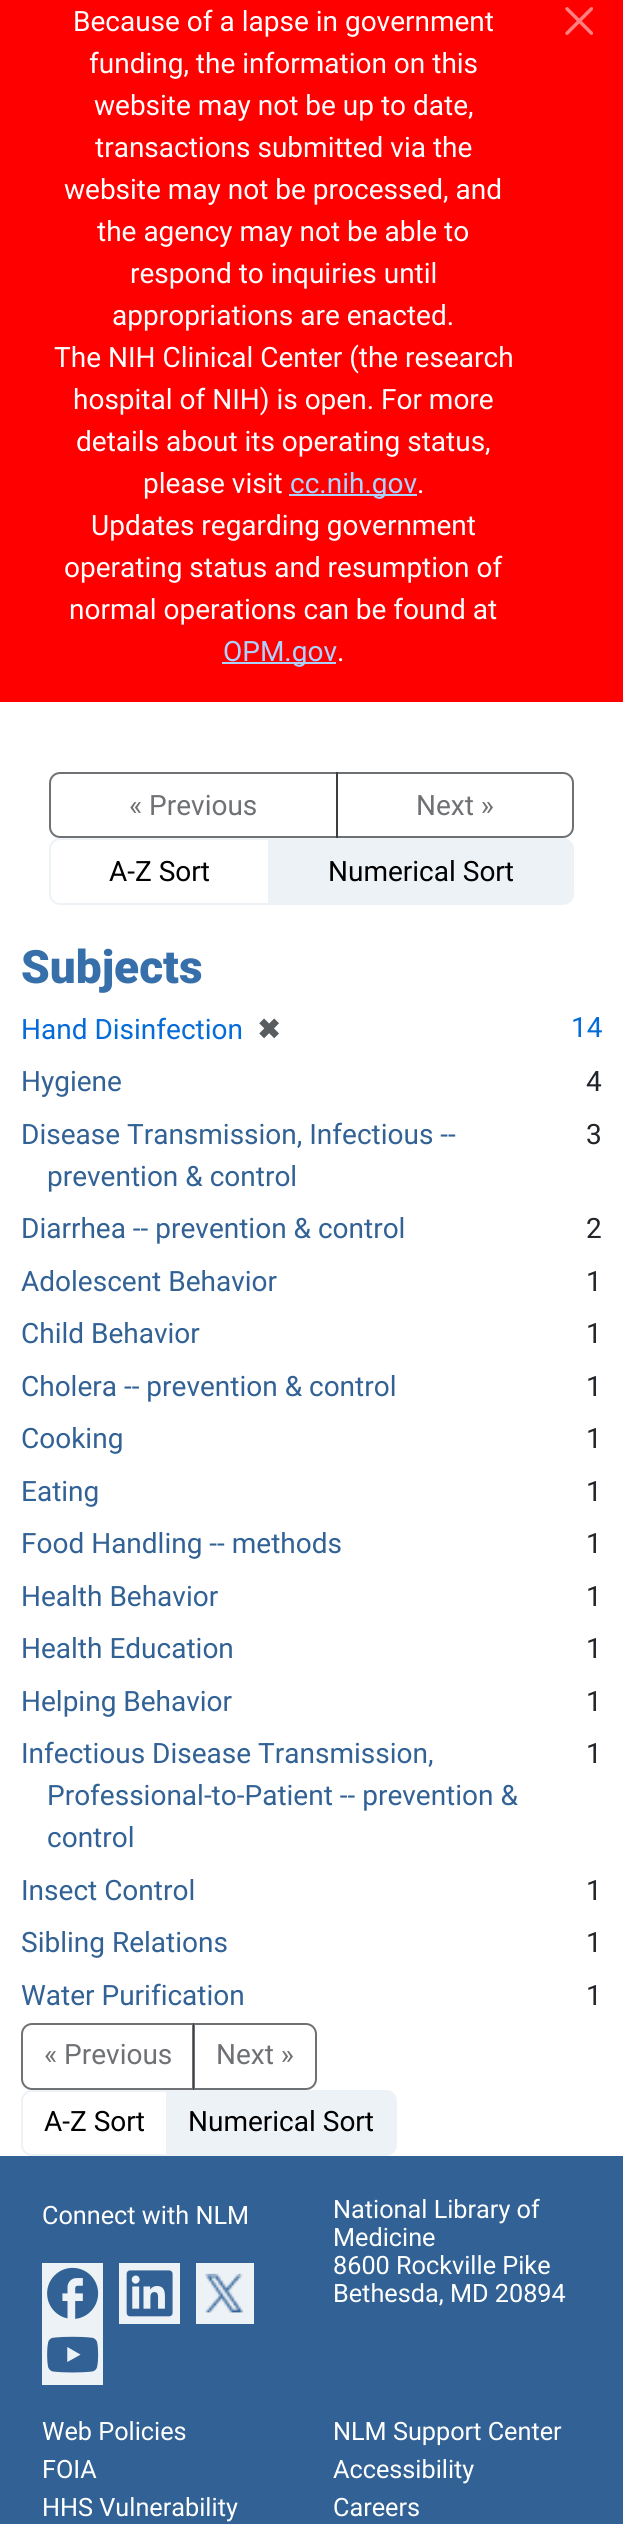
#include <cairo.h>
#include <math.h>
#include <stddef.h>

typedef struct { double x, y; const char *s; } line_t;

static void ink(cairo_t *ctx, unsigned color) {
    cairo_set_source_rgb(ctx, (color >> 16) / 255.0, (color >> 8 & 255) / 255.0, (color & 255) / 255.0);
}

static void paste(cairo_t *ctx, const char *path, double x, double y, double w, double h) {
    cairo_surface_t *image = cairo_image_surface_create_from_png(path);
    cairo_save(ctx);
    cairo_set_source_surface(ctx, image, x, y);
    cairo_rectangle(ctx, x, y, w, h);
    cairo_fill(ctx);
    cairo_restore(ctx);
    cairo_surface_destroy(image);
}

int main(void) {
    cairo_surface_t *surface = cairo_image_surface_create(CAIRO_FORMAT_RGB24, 623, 2524);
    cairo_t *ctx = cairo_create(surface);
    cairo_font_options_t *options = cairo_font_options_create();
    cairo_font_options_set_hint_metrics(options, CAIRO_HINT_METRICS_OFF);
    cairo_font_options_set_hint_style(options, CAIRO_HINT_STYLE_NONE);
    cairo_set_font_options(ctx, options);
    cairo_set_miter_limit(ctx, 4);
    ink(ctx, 0xFFFFFF);
    cairo_paint(ctx);
    ink(ctx, 0xFF0000);
    cairo_rectangle(ctx, 0, 0, 623, 702);
    cairo_fill(ctx);
    cairo_select_font_face(ctx, "Roboto", CAIRO_FONT_SLANT_NORMAL, CAIRO_FONT_WEIGHT_NORMAL);
    cairo_set_font_size(ctx, 28);
    ink(ctx, 0xFFFFFF);
    {
        static const line_t items[] = {
            {73, 31, "Because of a lapse in government"},
            {89, 73, "funding, the information on this"},
            {94, 115, "website may not be up to date,"},
            {95, 157, "transactions submitted via the"},
            {64, 199, "website may not be processed, and"},
            {97, 241, "the agency may not be able to"},
            {130, 283, "respond to inquiries until"},
            {112, 325, "appropriations are enacted."},
            {54, 367, "The NIH Clinical Center (the research"},
            {73, 409, "hospital of NIH) is open. For more"},
            {76, 451, "details about its operating status,"},
            {143, 493, "please visit"},
        };
        for (size_t i = 0; i < sizeof items / sizeof *items; i++) {
            cairo_move_to(ctx, items[i].x, items[i].y);
            cairo_show_text(ctx, items[i].s);
        }
    }
    ink(ctx, 0xAAD4FF);
    cairo_rectangle(ctx, 289, 494, 128, 2);
    cairo_fill(ctx);
    cairo_move_to(ctx, 290, 493);
    cairo_show_text(ctx, "cc.nih.gov");
    ink(ctx, 0xFFFFFF);
    {
        static const line_t items[] = {
            {417, 493, "."},
            {91, 535, "Updates regarding government"},
            {64, 577, "operating status and resumption of"},
            {69, 619, "normal operations can be found at"},
        };
        for (size_t i = 0; i < sizeof items / sizeof *items; i++) {
            cairo_move_to(ctx, items[i].x, items[i].y);
            cairo_show_text(ctx, items[i].s);
        }
    }
    ink(ctx, 0xAAD4FF);
    cairo_rectangle(ctx, 222, 662, 114, 2);
    cairo_fill(ctx);
    cairo_move_to(ctx, 223, 661);
    cairo_show_text(ctx, "OPM.gov");
    ink(ctx, 0xFFFFFF);
    cairo_move_to(ctx, 337, 661);
    cairo_show_text(ctx, ".");
    paste(ctx, "media/1.png", 565, 7, 28, 28);
    cairo_new_path(ctx);
    cairo_move_to(ctx, 60, 773);
    cairo_line_to(ctx, 337, 773);
    cairo_line_to(ctx, 337, 837);
    cairo_line_to(ctx, 60, 837);
    cairo_curve_to(ctx, 54.5, 837, 50, 832.5, 50, 827);
    cairo_line_to(ctx, 50, 783);
    cairo_curve_to(ctx, 50, 777.5, 54.5, 773, 60, 773);
    cairo_close_path(ctx);
    ink(ctx, 0x6F7174);
    cairo_stroke(ctx);
    cairo_move_to(ctx, 129, 815);
    cairo_show_text(ctx, "« Previous");
    cairo_new_path(ctx);
    cairo_move_to(ctx, 337, 773);
    cairo_line_to(ctx, 563, 773);
    cairo_curve_to(ctx, 568.5, 773, 573, 777.5, 573, 783);
    cairo_line_to(ctx, 573, 827);
    cairo_curve_to(ctx, 573, 832.5, 568.5, 837, 563, 837);
    cairo_line_to(ctx, 337, 837);
    cairo_close_path(ctx);
    cairo_set_source_rgba(ctx, 0.129, 0.145, 0.161, 0.65);
    cairo_stroke(ctx);
    ink(ctx, 0x6F7174);
    cairo_move_to(ctx, 416, 815);
    cairo_show_text(ctx, "Next »");
    cairo_new_path(ctx);
    cairo_move_to(ctx, 60, 839);
    cairo_line_to(ctx, 269, 839);
    cairo_line_to(ctx, 269, 904);
    cairo_line_to(ctx, 60, 904);
    cairo_curve_to(ctx, 54.5, 904, 50, 899.5, 50, 894);
    cairo_line_to(ctx, 50, 849);
    cairo_curve_to(ctx, 50, 843.5, 54.5, 839, 60, 839);
    cairo_close_path(ctx);
    ink(ctx, 0xEDF2F7);
    cairo_stroke(ctx);
    ink(ctx, 0x000000);
    cairo_move_to(ctx, 109, 881);
    cairo_show_text(ctx, "A-Z Sort");
    ink(ctx, 0xEDF2F7);
    cairo_new_path(ctx);
    cairo_move_to(ctx, 269, 839);
    cairo_line_to(ctx, 563, 839);
    cairo_curve_to(ctx, 568.5, 839, 573, 843.5, 573, 849);
    cairo_line_to(ctx, 573, 894);
    cairo_curve_to(ctx, 573, 899.5, 568.5, 904, 563, 904);
    cairo_line_to(ctx, 269, 904);
    cairo_close_path(ctx);
    cairo_fill_preserve(ctx);
    cairo_stroke(ctx);
    ink(ctx, 0x000000);
    cairo_move_to(ctx, 328, 881);
    cairo_show_text(ctx, "Numerical Sort");
    cairo_select_font_face(ctx, "Roboto Black", CAIRO_FONT_SLANT_NORMAL, CAIRO_FONT_WEIGHT_NORMAL);
    cairo_set_font_size(ctx, 46);
    ink(ctx, 0x376FAA);
    cairo_move_to(ctx, 21, 983);
    cairo_show_text(ctx, "Subjects");
    cairo_select_font_face(ctx, "Roboto", CAIRO_FONT_SLANT_NORMAL, CAIRO_FONT_WEIGHT_NORMAL);
    cairo_set_font_size(ctx, 28);
    ink(ctx, 0x056BD8);
    cairo_move_to(ctx, 21, 1039);
    cairo_show_text(ctx, "Hand Disinfection");
    cairo_select_font_face(ctx, "DejaVu Sans", CAIRO_FONT_SLANT_NORMAL, CAIRO_FONT_WEIGHT_BOLD);
    ink(ctx, 0x595C5F);
    cairo_move_to(ctx, 257, 1039);
    cairo_show_text(ctx, "✖");
    cairo_select_font_face(ctx, "Roboto", CAIRO_FONT_SLANT_NORMAL, CAIRO_FONT_WEIGHT_NORMAL);
    ink(ctx, 0x056BD8);
    cairo_move_to(ctx, 571, 1037);
    cairo_show_text(ctx, "14");
    ink(ctx, 0x326295);
    cairo_move_to(ctx, 21, 1091);
    cairo_show_text(ctx, "Hygiene");
    ink(ctx, 0x212529);
    cairo_move_to(ctx, 586, 1091);
    cairo_show_text(ctx, "4");
    ink(ctx, 0x326295);
    cairo_move_to(ctx, 21, 1144);
    cairo_show_text(ctx, "Disease Transmission, Infectious --");
    cairo_move_to(ctx, 47, 1186);
    cairo_show_text(ctx, "prevention & control");
    ink(ctx, 0x212529);
    cairo_move_to(ctx, 586, 1144);
    cairo_show_text(ctx, "3");
    ink(ctx, 0x326295);
    cairo_move_to(ctx, 21, 1238);
    cairo_show_text(ctx, "Diarrhea -- prevention & control");
    ink(ctx, 0x212529);
    cairo_move_to(ctx, 586, 1238);
    cairo_show_text(ctx, "2");
    ink(ctx, 0x326295);
    cairo_move_to(ctx, 21, 1291);
    cairo_show_text(ctx, "Adolescent Behavior");
    ink(ctx, 0x212529);
    cairo_move_to(ctx, 586, 1291);
    cairo_show_text(ctx, "1");
    ink(ctx, 0x326295);
    cairo_move_to(ctx, 21, 1343);
    cairo_show_text(ctx, "Child Behavior");
    ink(ctx, 0x212529);
    cairo_move_to(ctx, 586, 1343);
    cairo_show_text(ctx, "1");
    ink(ctx, 0x326295);
    cairo_move_to(ctx, 21, 1396);
    cairo_show_text(ctx, "Cholera -- prevention & control");
    ink(ctx, 0x212529);
    cairo_move_to(ctx, 586, 1396);
    cairo_show_text(ctx, "1");
    ink(ctx, 0x326295);
    cairo_move_to(ctx, 21, 1448);
    cairo_show_text(ctx, "Cooking");
    ink(ctx, 0x212529);
    cairo_move_to(ctx, 586, 1448);
    cairo_show_text(ctx, "1");
    ink(ctx, 0x326295);
    cairo_move_to(ctx, 21, 1501);
    cairo_show_text(ctx, "Eating");
    ink(ctx, 0x212529);
    cairo_move_to(ctx, 586, 1501);
    cairo_show_text(ctx, "1");
    ink(ctx, 0x326295);
    cairo_move_to(ctx, 21, 1553);
    cairo_show_text(ctx, "Food Handling -- methods");
    ink(ctx, 0x212529);
    cairo_move_to(ctx, 586, 1553);
    cairo_show_text(ctx, "1");
    ink(ctx, 0x326295);
    cairo_move_to(ctx, 21, 1606);
    cairo_show_text(ctx, "Health Behavior");
    ink(ctx, 0x212529);
    cairo_move_to(ctx, 586, 1606);
    cairo_show_text(ctx, "1");
    ink(ctx, 0x326295);
    cairo_move_to(ctx, 21, 1658);
    cairo_show_text(ctx, "Health Education");
    ink(ctx, 0x212529);
    cairo_move_to(ctx, 586, 1658);
    cairo_show_text(ctx, "1");
    ink(ctx, 0x326295);
    cairo_move_to(ctx, 21, 1711);
    cairo_show_text(ctx, "Helping Behavior");
    ink(ctx, 0x212529);
    cairo_move_to(ctx, 586, 1711);
    cairo_show_text(ctx, "1");
    ink(ctx, 0x326295);
    {
        static const line_t items[] = {
            {21, 1763, "Infectious Disease Transmission,"},
            {47, 1805, "Professional-to-Patient -- prevention &"},
            {47, 1847, "control"},
        };
        for (size_t i = 0; i < sizeof items / sizeof *items; i++) {
            cairo_move_to(ctx, items[i].x, items[i].y);
            cairo_show_text(ctx, items[i].s);
        }
    }
    ink(ctx, 0x212529);
    cairo_move_to(ctx, 586, 1763);
    cairo_show_text(ctx, "1");
    ink(ctx, 0x326295);
    cairo_move_to(ctx, 21, 1900);
    cairo_show_text(ctx, "Insect Control");
    ink(ctx, 0x212529);
    cairo_move_to(ctx, 586, 1900);
    cairo_show_text(ctx, "1");
    ink(ctx, 0x326295);
    cairo_move_to(ctx, 21, 1952);
    cairo_show_text(ctx, "Sibling Relations");
    ink(ctx, 0x212529);
    cairo_move_to(ctx, 586, 1952);
    cairo_show_text(ctx, "1");
    ink(ctx, 0x326295);
    cairo_move_to(ctx, 21, 2005);
    cairo_show_text(ctx, "Water Purification");
    ink(ctx, 0x212529);
    cairo_move_to(ctx, 586, 2005);
    cairo_show_text(ctx, "1");
    cairo_new_path(ctx);
    cairo_move_to(ctx, 32, 2024);
    cairo_line_to(ctx, 193, 2024);
    cairo_line_to(ctx, 193, 2089);
    cairo_line_to(ctx, 32, 2089);
    cairo_curve_to(ctx, 26.5, 2089, 22, 2084.5, 22, 2079);
    cairo_line_to(ctx, 22, 2034);
    cairo_curve_to(ctx, 22, 2028.5, 26.5, 2024, 32, 2024);
    cairo_close_path(ctx);
    ink(ctx, 0x6F7174);
    cairo_stroke(ctx);
    cairo_move_to(ctx, 44, 2064);
    cairo_show_text(ctx, "« Previous");
    cairo_new_path(ctx);
    cairo_move_to(ctx, 194, 2024);
    cairo_line_to(ctx, 306, 2024);
    cairo_curve_to(ctx, 311.5, 2024, 316, 2028.5, 316, 2034);
    cairo_line_to(ctx, 316, 2079);
    cairo_curve_to(ctx, 316, 2084.5, 311.5, 2089, 306, 2089);
    cairo_line_to(ctx, 194, 2089);
    cairo_close_path(ctx);
    cairo_set_source_rgba(ctx, 0.129, 0.145, 0.161, 0.65);
    cairo_stroke(ctx);
    ink(ctx, 0x6F7174);
    cairo_move_to(ctx, 216, 2064);
    cairo_show_text(ctx, "Next »");
    cairo_new_path(ctx);
    cairo_move_to(ctx, 32, 2091);
    cairo_line_to(ctx, 167, 2091);
    cairo_line_to(ctx, 167, 2155);
    cairo_line_to(ctx, 32, 2155);
    cairo_curve_to(ctx, 26.5, 2155, 22, 2150.5, 22, 2145);
    cairo_line_to(ctx, 22, 2101);
    cairo_curve_to(ctx, 22, 2095.5, 26.5, 2091, 32, 2091);
    cairo_close_path(ctx);
    ink(ctx, 0xEDF2F7);
    cairo_stroke(ctx);
    ink(ctx, 0x000000);
    cairo_move_to(ctx, 44, 2131);
    cairo_show_text(ctx, "A-Z Sort");
    ink(ctx, 0xEDF2F7);
    cairo_new_path(ctx);
    cairo_move_to(ctx, 167, 2091);
    cairo_line_to(ctx, 386, 2091);
    cairo_curve_to(ctx, 391.5, 2091, 396, 2095.5, 396, 2101);
    cairo_line_to(ctx, 396, 2145);
    cairo_curve_to(ctx, 396, 2150.5, 391.5, 2155, 386, 2155);
    cairo_line_to(ctx, 167, 2155);
    cairo_close_path(ctx);
    cairo_fill_preserve(ctx);
    cairo_stroke(ctx);
    ink(ctx, 0x000000);
    cairo_move_to(ctx, 188, 2131);
    cairo_show_text(ctx, "Numerical Sort");
    ink(ctx, 0x326295);
    cairo_rectangle(ctx, 0, 2156, 623, 368);
    cairo_fill(ctx);
    cairo_set_font_size(ctx, 25.25);
    ink(ctx, 0xFFFFFF);
    cairo_move_to(ctx, 42, 2224);
    cairo_show_text(ctx, "Connect with NLM");
    ink(ctx, 0xEDF2F7);
    cairo_rectangle(ctx, 42, 2263, 61, 122);
    cairo_fill(ctx);
    paste(ctx, "media/2.png", 47, 2267, 52, 52);
    cairo_rectangle(ctx, 119, 2263, 61, 61);
    cairo_fill(ctx);
    paste(ctx, "media/3.png", 126, 2270, 47, 47);
    cairo_rectangle(ctx, 196, 2263, 58, 61);
    cairo_fill(ctx);
    paste(ctx, "media/4.png", 205, 2273, 38, 40);
    paste(ctx, "media/5.png", 47, 2336, 52, 37);
    ink(ctx, 0xFFFFFF);
    {
        static const line_t items[] = {
            {333, 2218, "National Library of"},
            {333, 2246, "Medicine"},
            {333, 2274, "8600 Rockville Pike"},
            {333, 2302, "Bethesda, MD 20894"},
            {42, 2440, "Web Policies"},
            {42, 2478, "FOIA"},
            {42, 2516, "HHS Vulnerability"},
            {333, 2440, "NLM Support Center"},
            {333, 2478, "Accessibility"},
            {333, 2516, "Careers"},
        };
        for (size_t i = 0; i < sizeof items / sizeof *items; i++) {
            cairo_move_to(ctx, items[i].x, items[i].y);
            cairo_show_text(ctx, items[i].s);
        }
    }
    cairo_surface_write_to_png(surface, "image.png");
    cairo_font_options_destroy(options);
    cairo_destroy(ctx);
    cairo_surface_destroy(surface);
    return 0;
}
